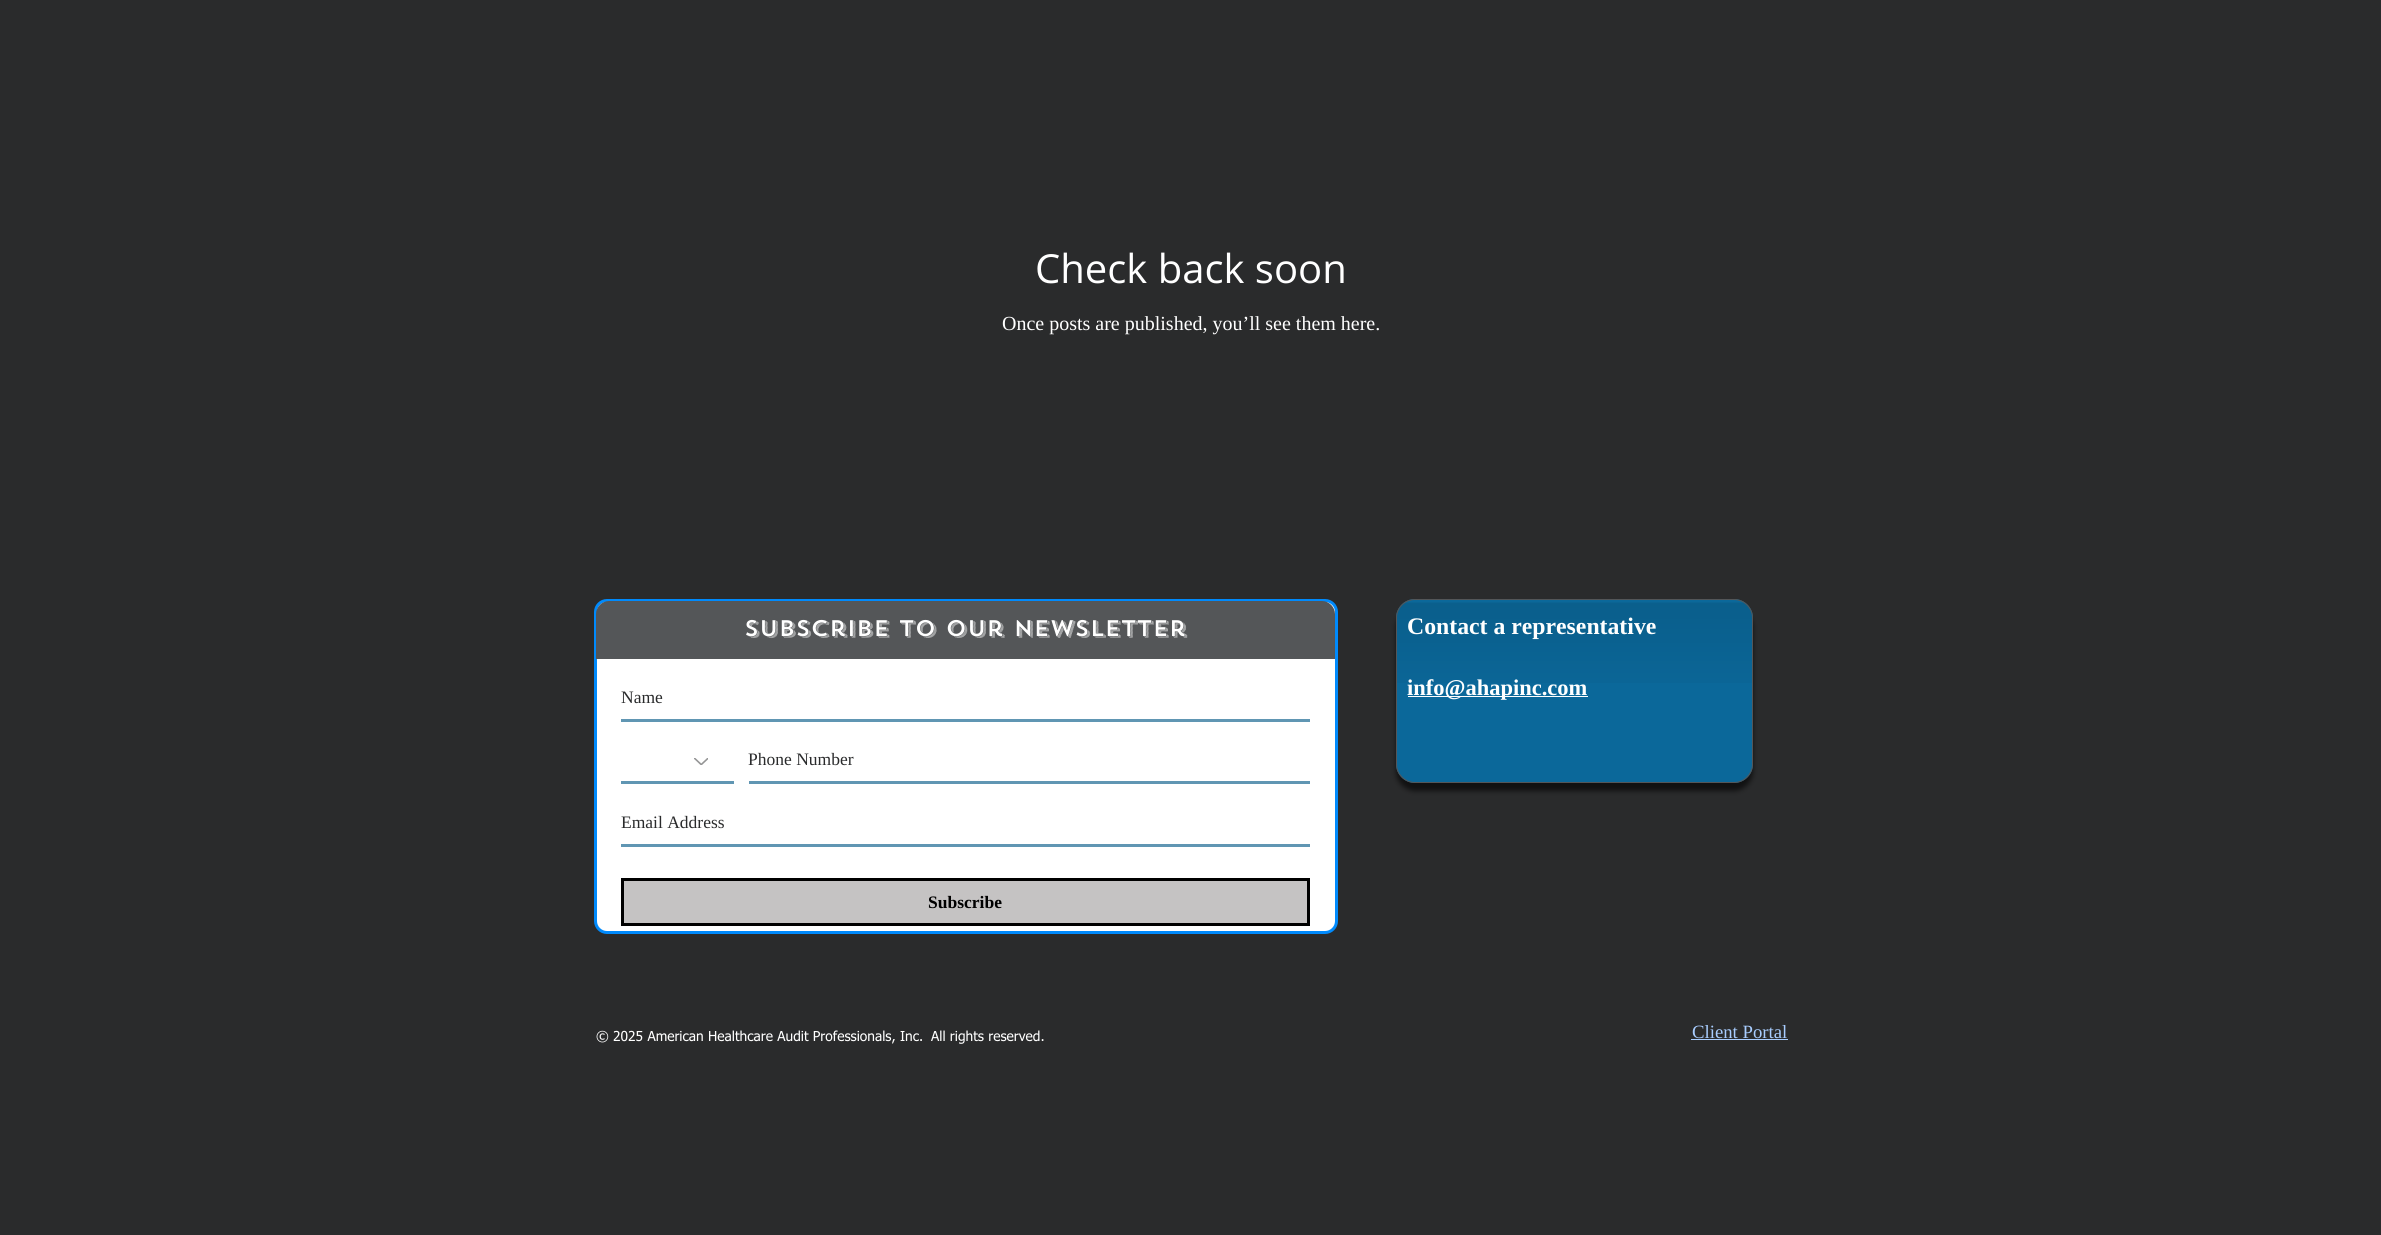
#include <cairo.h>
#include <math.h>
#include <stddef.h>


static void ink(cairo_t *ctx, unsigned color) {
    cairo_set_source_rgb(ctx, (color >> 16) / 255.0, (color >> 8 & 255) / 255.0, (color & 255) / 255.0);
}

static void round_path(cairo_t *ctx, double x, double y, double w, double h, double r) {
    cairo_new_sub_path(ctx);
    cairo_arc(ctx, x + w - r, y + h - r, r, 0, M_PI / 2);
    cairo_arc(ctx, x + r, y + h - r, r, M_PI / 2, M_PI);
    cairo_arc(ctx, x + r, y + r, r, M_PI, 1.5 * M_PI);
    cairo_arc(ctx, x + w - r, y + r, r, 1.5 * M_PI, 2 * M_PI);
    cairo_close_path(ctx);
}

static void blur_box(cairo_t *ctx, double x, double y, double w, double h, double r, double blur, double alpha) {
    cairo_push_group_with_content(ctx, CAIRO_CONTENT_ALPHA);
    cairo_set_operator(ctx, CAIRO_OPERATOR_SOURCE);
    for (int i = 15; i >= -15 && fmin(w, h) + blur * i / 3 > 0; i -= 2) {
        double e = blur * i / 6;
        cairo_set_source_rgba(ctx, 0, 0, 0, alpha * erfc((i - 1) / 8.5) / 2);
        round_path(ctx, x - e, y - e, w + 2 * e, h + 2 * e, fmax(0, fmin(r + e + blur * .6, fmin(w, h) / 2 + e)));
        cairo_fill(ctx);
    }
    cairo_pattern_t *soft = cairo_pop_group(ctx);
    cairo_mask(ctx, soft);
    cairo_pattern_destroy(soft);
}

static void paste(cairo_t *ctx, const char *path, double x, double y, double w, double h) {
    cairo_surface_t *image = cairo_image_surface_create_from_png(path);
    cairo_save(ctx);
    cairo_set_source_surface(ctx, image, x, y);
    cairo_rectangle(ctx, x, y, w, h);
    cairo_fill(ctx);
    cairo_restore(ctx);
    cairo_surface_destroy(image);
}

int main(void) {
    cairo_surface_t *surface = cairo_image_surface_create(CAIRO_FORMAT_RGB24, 2381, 1235);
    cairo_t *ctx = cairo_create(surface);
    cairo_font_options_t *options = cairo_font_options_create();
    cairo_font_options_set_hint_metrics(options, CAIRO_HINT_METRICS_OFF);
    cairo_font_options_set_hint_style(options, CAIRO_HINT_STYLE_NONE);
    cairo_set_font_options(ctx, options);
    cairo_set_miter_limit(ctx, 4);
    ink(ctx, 0x2A2B2C);
    cairo_paint(ctx);
    cairo_select_font_face(ctx, "Open Sans", CAIRO_FONT_SLANT_NORMAL, CAIRO_FONT_WEIGHT_NORMAL);
    cairo_set_font_size(ctx, 40);
    ink(ctx, 0xFFFFFF);
    cairo_move_to(ctx, 1035, 283);
    cairo_show_text(ctx, "Check back soon");
    cairo_select_font_face(ctx, "Liberation Serif", CAIRO_FONT_SLANT_NORMAL, CAIRO_FONT_WEIGHT_NORMAL);
    cairo_set_font_size(ctx, 20);
    cairo_move_to(ctx, 1002, 330);
    cairo_show_text(ctx, "Once posts are published, you’ll see them here.");
    ink(ctx, 0x000000);
    blur_box(ctx, 1396, 608, 357, 183, 19, 2.5, 0.6);
    ink(ctx, 0x0B689A);
    round_path(ctx, 1396, 599, 357, 184, 19);
    cairo_fill(ctx);
    paste(ctx, "media/1.png", 1396, 602, 356, 81);
    round_path(ctx, 1396.5, 599.5, 356, 183, 18.5);
    ink(ctx, 0x545658);
    cairo_set_line_width(ctx, 1);
    cairo_stroke(ctx);
    ink(ctx, 0xFFFFFF);
    round_path(ctx, 595.5, 600.5, 741, 332, 11.5);
    cairo_fill_preserve(ctx);
    ink(ctx, 0x008AFC);
    cairo_set_line_width(ctx, 3);
    cairo_stroke(ctx);
    ink(ctx, 0x545658);
    cairo_new_path(ctx);
    cairo_move_to(ctx, 609, 601);
    cairo_line_to(ctx, 1322, 601);
    cairo_curve_to(ctx, 1329, 601, 1335, 607, 1335, 614);
    cairo_line_to(ctx, 1335, 659);
    cairo_line_to(ctx, 596, 659);
    cairo_line_to(ctx, 596, 614);
    cairo_curve_to(ctx, 596, 607, 602, 601, 609, 601);
    cairo_close_path(ctx);
    cairo_fill(ctx);
    cairo_select_font_face(ctx, "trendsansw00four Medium", CAIRO_FONT_SLANT_NORMAL, CAIRO_FONT_WEIGHT_NORMAL);
    cairo_set_font_size(ctx, 22.5);
    ink(ctx, 0xFFFFFF);
    cairo_move_to(ctx, 744, 636);
    cairo_show_text(ctx, "Subscribe to our newsletter");
    ink(ctx, 0x6096B3);
    cairo_rectangle(ctx, 621, 719, 689, 3);
    cairo_fill(ctx);
    cairo_select_font_face(ctx, "Liberation Serif", CAIRO_FONT_SLANT_NORMAL, CAIRO_FONT_WEIGHT_NORMAL);
    cairo_set_font_size(ctx, 17.5);
    ink(ctx, 0x2A2B2C);
    cairo_move_to(ctx, 621, 703);
    cairo_show_text(ctx, "Name");
    paste(ctx, "media/2.png", 694, 758, 14, 7);
    ink(ctx, 0x6096B3);
    cairo_rectangle(ctx, 621, 781, 113, 3);
    cairo_fill(ctx);
    cairo_rectangle(ctx, 749, 781, 561, 3);
    cairo_fill(ctx);
    ink(ctx, 0x2A2B2C);
    cairo_move_to(ctx, 748, 765);
    cairo_show_text(ctx, "Phone Number");
    ink(ctx, 0x6096B3);
    cairo_rectangle(ctx, 621, 844, 689, 3);
    cairo_fill(ctx);
    ink(ctx, 0x2A2B2C);
    cairo_move_to(ctx, 621, 828);
    cairo_show_text(ctx, "Email Address");
    ink(ctx, 0xC5C3C3);
    cairo_rectangle(ctx, 622.5, 879.5, 686, 45);
    cairo_fill_preserve(ctx);
    ink(ctx, 0x000000);
    cairo_stroke(ctx);
    cairo_select_font_face(ctx, "Liberation Serif", CAIRO_FONT_SLANT_NORMAL, CAIRO_FONT_WEIGHT_BOLD);
    cairo_move_to(ctx, 928, 908);
    cairo_show_text(ctx, "Subscribe");
    cairo_set_font_size(ctx, 23.75);
    ink(ctx, 0xFFFFFF);
    cairo_move_to(ctx, 1407, 634);
    cairo_show_text(ctx, "Contact a representative");
    cairo_rectangle(ctx, 1408, 696, 180, 1);
    cairo_fill(ctx);
    cairo_set_font_size(ctx, 22.5);
    cairo_move_to(ctx, 1407, 695);
    cairo_show_text(ctx, "info@ahapinc.com");
    cairo_select_font_face(ctx, "tahoma", CAIRO_FONT_SLANT_NORMAL, CAIRO_FONT_WEIGHT_NORMAL);
    cairo_set_font_size(ctx, 13.75);
    cairo_move_to(ctx, 596, 1041);
    cairo_show_text(ctx, "© 2025 American Healthcare Audit Professionals, Inc.");
    cairo_move_to(ctx, 931, 1041);
    cairo_show_text(ctx, "All rights reserved.");
    cairo_select_font_face(ctx, "Liberation Serif", CAIRO_FONT_SLANT_NORMAL, CAIRO_FONT_WEIGHT_NORMAL);
    cairo_set_font_size(ctx, 18.75);
    ink(ctx, 0xA8CDFF);
    cairo_move_to(ctx, 1692, 1038);
    cairo_show_text(ctx, "Client Portal");
    cairo_rectangle(ctx, 1691, 1039, 97, 1);
    cairo_fill(ctx);
    cairo_surface_write_to_png(surface, "image.png");
    cairo_font_options_destroy(options);
    cairo_destroy(ctx);
    cairo_surface_destroy(surface);
    return 0;
}
